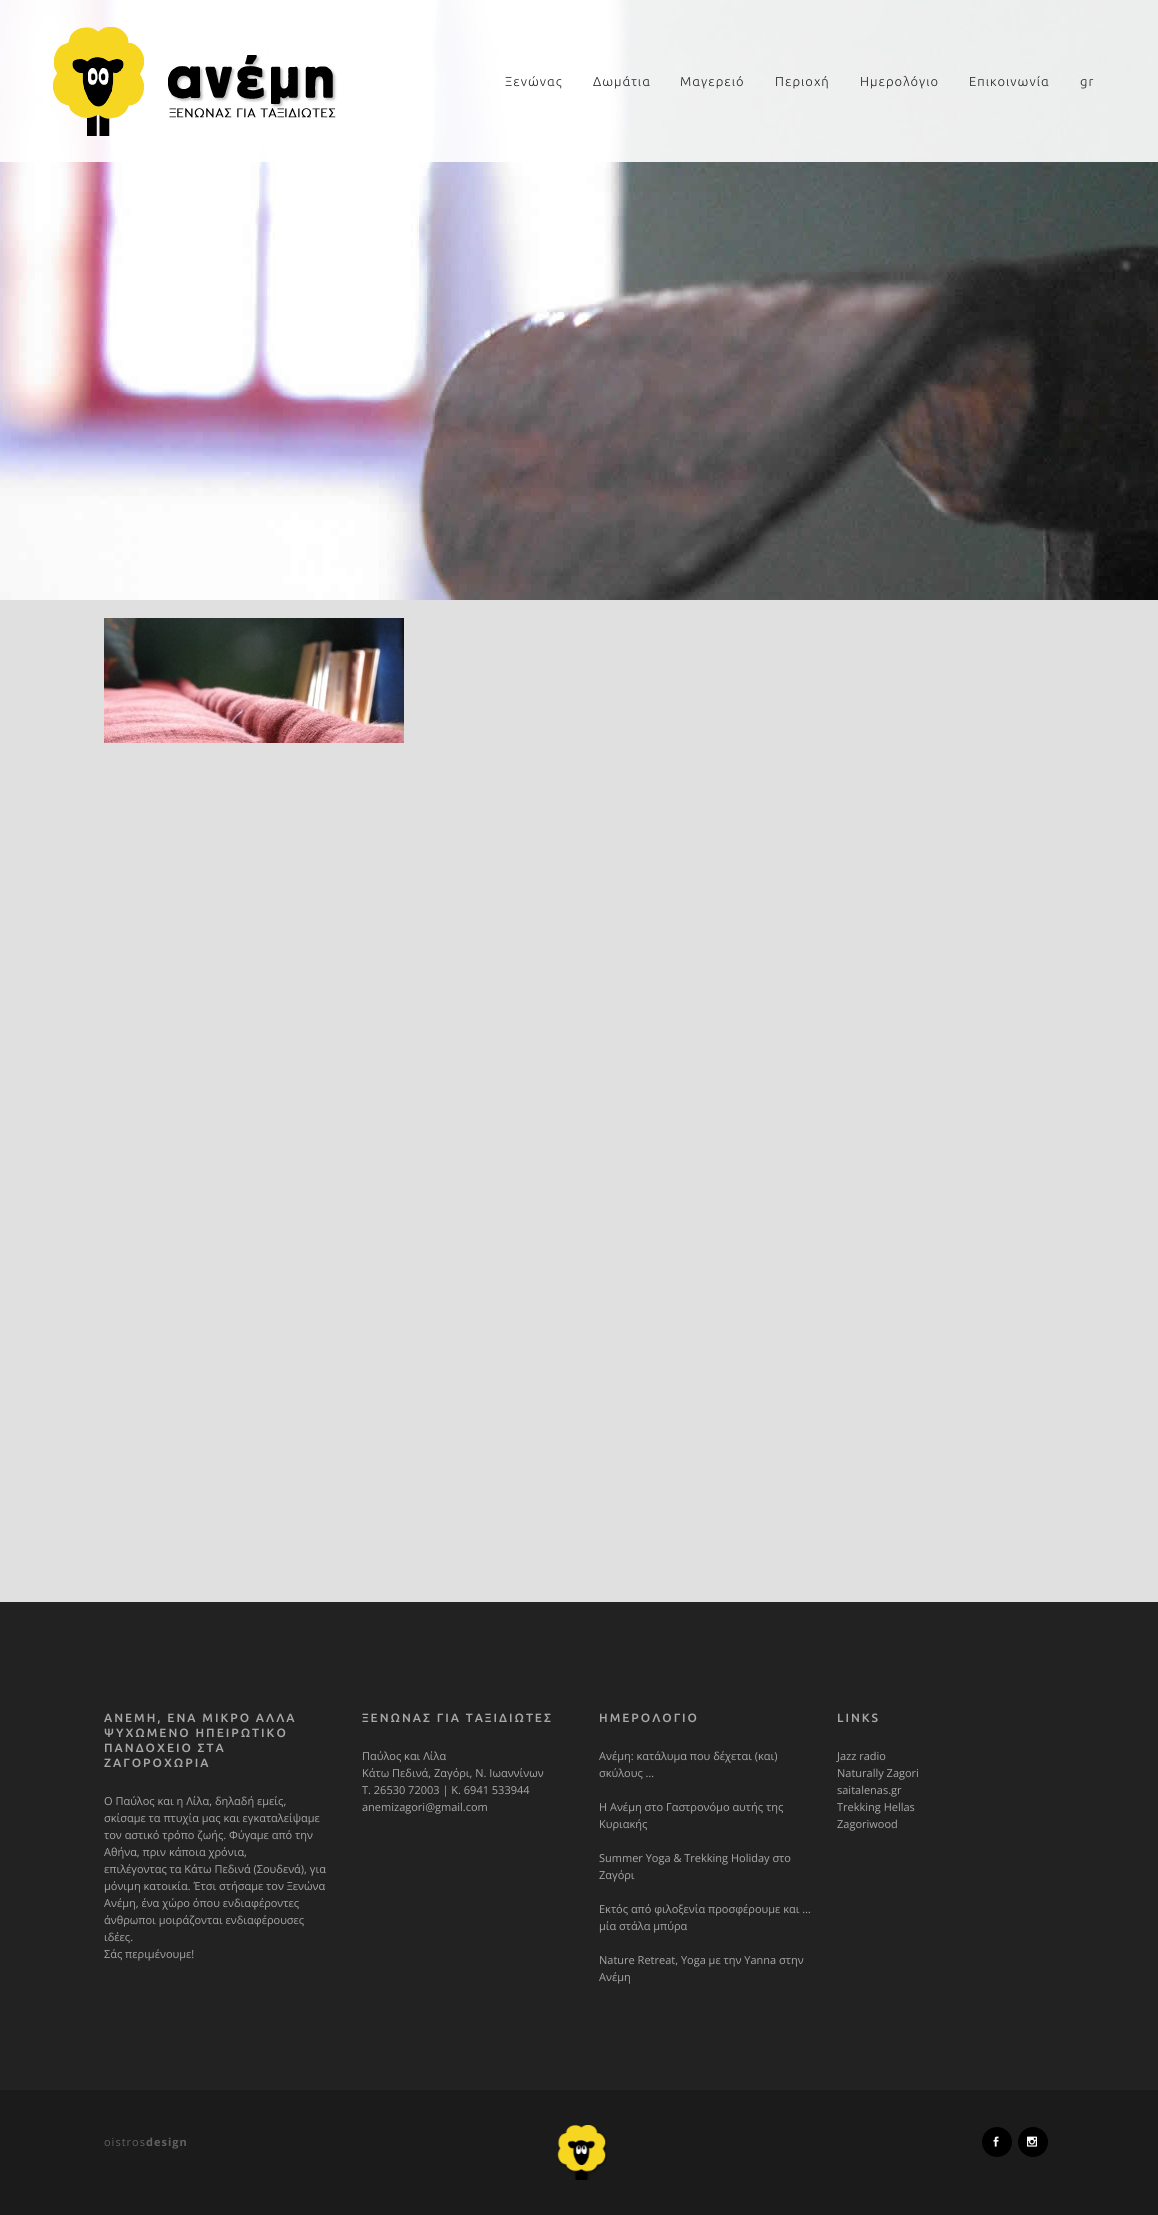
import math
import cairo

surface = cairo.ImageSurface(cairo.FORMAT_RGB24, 1158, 2215)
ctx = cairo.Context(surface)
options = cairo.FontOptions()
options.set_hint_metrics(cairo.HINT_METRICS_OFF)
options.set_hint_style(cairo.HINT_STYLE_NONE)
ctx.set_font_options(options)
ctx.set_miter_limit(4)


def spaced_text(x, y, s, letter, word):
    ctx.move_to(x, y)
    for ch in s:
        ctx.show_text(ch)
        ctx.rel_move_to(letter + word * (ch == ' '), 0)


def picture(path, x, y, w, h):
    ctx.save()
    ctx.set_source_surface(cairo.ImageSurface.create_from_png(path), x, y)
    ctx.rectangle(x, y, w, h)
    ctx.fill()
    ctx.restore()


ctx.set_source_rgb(0.878, 0.878, 0.878)
ctx.paint()
picture("img1.png", 0, 0, 1158, 600)
picture("img2.png", 104, 618, 300, 125)
ctx.set_source_rgba(1, 1, 1, 0.9)
ctx.rectangle(0, 0, 1158, 162)
ctx.fill()
picture("img3.png", 53, 27, 284, 109)
ctx.select_font_face("Ubuntu Light")
ctx.set_font_size(13)
ctx.set_source_rgb(0.133, 0.133, 0.133)
spaced_text(505, 86, "Ξενώνας", 1, 0)
spaced_text(593, 86, "Δωμάτια", 1, 0)
spaced_text(680, 86, "Μαγερειό", 1, 0)
spaced_text(775, 86, "Περιοχή", 1, 0)
spaced_text(860, 86, "Ημερολόγιο", 1, 0)
spaced_text(969, 86, "Επικοινωνία", 1, 0)
spaced_text(1080, 86, "gr", 1, 0)
ctx.rectangle(0, 1602, 1158, 488)
ctx.fill()
ctx.select_font_face("Ubuntu Medium")
ctx.set_font_size(12)
ctx.set_source_rgb(0.659, 0.659, 0.659)
spaced_text(104, 1722, "ΑΝΕΜΗ, ΕΝΑ ΜΙΚΡΟ ΑΛΛΑ", 2, 0)
spaced_text(104, 1737, "ΨΥΧΩΜΕΝΟ ΗΠΕΙΡΩΤΙΚΟ", 2, 0)
spaced_text(104, 1752, "ΠΑΝΔΟΧΕΙΟ ΣΤΑ", 2, 0)
spaced_text(104, 1767, "ΖΑΓΟΡΟΧΩΡΙΑ", 2, 0)
ctx.select_font_face("Open Sans")
ctx.set_font_size(11)
ctx.move_to(104, 1805)
ctx.show_text("Ο Παύλος και η Λίλα, δηλαδή εμείς,")
ctx.move_to(104, 1822)
ctx.show_text("σκίσαμε τα πτυχία μας και εγκαταλείψαμε")
ctx.move_to(104, 1839)
ctx.show_text("τον αστικό τρόπο ζωής. Φύγαμε από την")
ctx.move_to(104, 1856)
ctx.show_text("Αθήνα, πριν κάποια χρόνια,")
ctx.move_to(104, 1873)
ctx.show_text("επιλέγοντας τα Κάτω Πεδινά (Σουδενά), για")
ctx.move_to(104, 1890)
ctx.show_text("μόνιμη κατοικία. Έτσι στήσαμε τον Ξενώνα")
ctx.move_to(104, 1907)
ctx.show_text("Ανέμη, ένα χώρο όπου ενδιαφέροντες")
ctx.move_to(104, 1924)
ctx.show_text("άνθρωποι μοιράζονται ενδιαφέρουσες")
ctx.move_to(104, 1941)
ctx.show_text("ιδέες.")
ctx.move_to(104, 1958)
ctx.show_text("Σάς περιμένουμε!")
ctx.select_font_face("Ubuntu Medium")
ctx.set_font_size(12)
spaced_text(362, 1722, "ΞΕΝΩΝΑΣ ΓΙΑ ΤΑΞΙΔΙΩΤΕΣ", 2, 0)
ctx.select_font_face("Open Sans")
ctx.set_font_size(11)
ctx.move_to(362, 1760)
ctx.show_text("Παύλος και Λίλα")
ctx.move_to(362, 1777)
ctx.show_text("Κάτω Πεδινά, Ζαγόρι, Ν. Ιωαννίνων")
ctx.move_to(362, 1794)
ctx.show_text("Τ. 26530 72003 | Κ. 6941 533944")
ctx.move_to(362, 1811)
ctx.show_text("anemizagori@gmail.com")
ctx.select_font_face("Ubuntu Medium")
ctx.set_font_size(12)
spaced_text(599, 1722, "ΗΜΕΡΟΛΟΓΙΟ", 2, 0)
ctx.select_font_face("Open Sans")
ctx.set_font_size(11)
ctx.move_to(599, 1760)
ctx.show_text("Ανέμη: κατάλυμα που δέχεται (και)")
ctx.move_to(599, 1777)
ctx.show_text("σκύλους …")
ctx.move_to(599, 1811)
ctx.show_text("Η Ανέμη στο Γαστρονόμο αυτής της")
ctx.move_to(599, 1828)
ctx.show_text("Κυριακής")
ctx.move_to(599, 1862)
ctx.show_text("Summer Yoga & Trekking Holiday στο")
ctx.move_to(599, 1879)
ctx.show_text("Ζαγόρι")
ctx.move_to(599, 1913)
ctx.show_text("Εκτός από φιλοξενία προσφέρουμε και …")
ctx.move_to(599, 1930)
ctx.show_text("μία στάλα μπύρα")
ctx.move_to(599, 1964)
ctx.show_text("Nature Retreat, Yoga με την Yanna στην")
ctx.move_to(599, 1981)
ctx.show_text("Ανέμη")
ctx.select_font_face("Ubuntu Medium")
ctx.set_font_size(12)
spaced_text(837, 1722, "LINKS", 2, 0)
ctx.select_font_face("Open Sans")
ctx.set_font_size(11)
ctx.move_to(837, 1760)
ctx.show_text("Jazz radio")
ctx.move_to(837, 1777)
ctx.show_text("Naturally Zagori")
ctx.move_to(837, 1794)
ctx.show_text("saitalenas.gr")
ctx.move_to(837, 1811)
ctx.show_text("Trekking Hellas")
ctx.move_to(837, 1828)
ctx.show_text("Zagoriwood")
ctx.set_source_rgb(0.106, 0.106, 0.106)
ctx.rectangle(0, 2090, 1158, 125)
ctx.fill()
ctx.set_source_rgb(0.376, 0.376, 0.376)
spaced_text(104, 2146, "oistros", 1, 0)
ctx.select_font_face("Open Sans", cairo.FONT_SLANT_NORMAL, cairo.FONT_WEIGHT_BOLD)
spaced_text(146, 2146, "design", 1, 0)
picture("img4.png", 557, 2125, 50, 55)
ctx.set_source_rgb(0, 0, 0)
ctx.arc(997, 2142, 15, 0, 2 * math.pi)
ctx.fill()
picture("img5.png", 993, 2136, 6, 11)
ctx.arc(1033, 2142, 15, 0, 2 * math.pi)
ctx.fill()
picture("img6.png", 1027, 2136, 10, 11)
surface.write_to_png("page.png")
